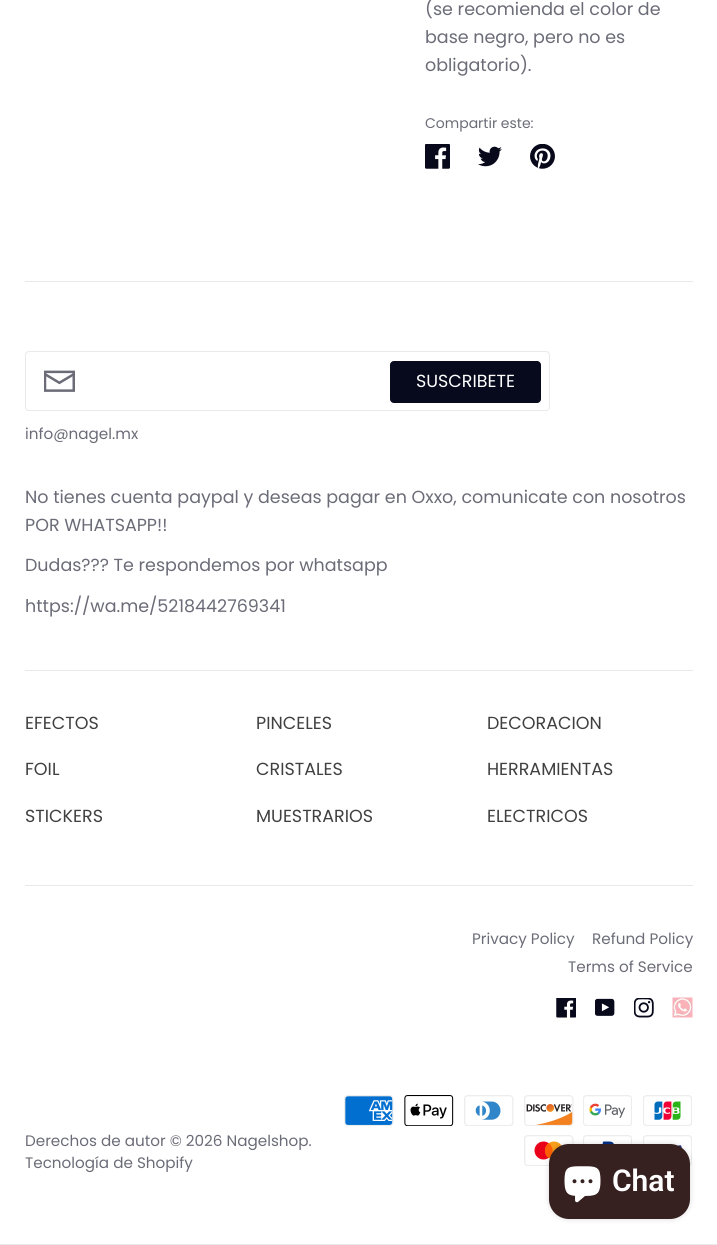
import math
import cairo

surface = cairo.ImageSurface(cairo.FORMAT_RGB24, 717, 1245)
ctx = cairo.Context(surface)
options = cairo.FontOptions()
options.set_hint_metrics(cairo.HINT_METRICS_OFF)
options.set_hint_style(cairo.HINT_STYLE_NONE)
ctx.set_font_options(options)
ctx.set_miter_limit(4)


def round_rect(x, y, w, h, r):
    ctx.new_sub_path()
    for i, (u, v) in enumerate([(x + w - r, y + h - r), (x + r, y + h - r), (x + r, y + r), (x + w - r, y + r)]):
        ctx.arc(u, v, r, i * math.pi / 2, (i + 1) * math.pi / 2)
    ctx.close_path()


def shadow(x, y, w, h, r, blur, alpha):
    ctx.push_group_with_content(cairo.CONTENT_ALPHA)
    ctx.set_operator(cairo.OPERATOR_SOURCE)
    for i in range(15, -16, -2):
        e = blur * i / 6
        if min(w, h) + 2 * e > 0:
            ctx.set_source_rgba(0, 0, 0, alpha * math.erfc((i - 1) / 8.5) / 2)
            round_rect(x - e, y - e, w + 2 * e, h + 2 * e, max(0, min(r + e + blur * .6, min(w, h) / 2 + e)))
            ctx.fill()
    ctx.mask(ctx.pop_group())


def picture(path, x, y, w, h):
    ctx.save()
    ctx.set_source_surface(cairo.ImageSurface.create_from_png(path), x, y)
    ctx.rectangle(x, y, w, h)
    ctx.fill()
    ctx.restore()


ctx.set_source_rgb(1, 1, 1)
ctx.paint()
ctx.select_font_face("Poppins")
ctx.set_font_size(17.5)
ctx.set_source_rgb(0.42, 0.424, 0.467)
ctx.move_to(425, 15)
ctx.show_text("(se recomienda el color de")
ctx.move_to(425, 43)
ctx.show_text("base negro, pero no es")
ctx.move_to(425, 71)
ctx.show_text("obligatorio).")
ctx.set_font_size(14)
ctx.move_to(425, 128)
ctx.show_text("Compartir este:")
picture("img1.png", 425, 144, 25, 25)
picture("img2.png", 478, 146, 24, 21)
picture("img3.png", 530, 144, 25, 25)
ctx.set_source_rgb(0.914, 0.914, 0.922)
ctx.rectangle(25, 281, 668, 1)
ctx.fill()
round_rect(25.5, 351.5, 524, 59, 3.5)
ctx.set_line_width(1)
ctx.stroke()
picture("img4.png", 44, 370, 31, 22)
ctx.set_source_rgb(0.031, 0.039, 0.11)
round_rect(390.5, 361.5, 150, 41, 3.5)
ctx.fill_preserve()
ctx.stroke()
ctx.set_font_size(17.5)
ctx.set_source_rgb(1, 1, 1)
ctx.move_to(416, 387)
ctx.show_text("SUSCRIBETE")
ctx.set_font_size(15.2)
ctx.set_source_rgb(0.42, 0.424, 0.467)
ctx.move_to(25, 439)
ctx.show_text("info@nagel.mx")
ctx.set_source_rgb(0.914, 0.914, 0.922)
ctx.rectangle(25, 670, 668, 1)
ctx.fill()
ctx.set_font_size(17.5)
ctx.set_source_rgb(0.42, 0.424, 0.467)
ctx.move_to(25, 503)
ctx.show_text("No tienes cuenta paypal y deseas pagar en Oxxo, comunicate con nosotros")
ctx.move_to(25, 531)
ctx.show_text("POR WHATSAPP!!")
ctx.move_to(25, 571)
ctx.show_text("Dudas??? Te respondemos por whatsapp")
ctx.move_to(25, 612)
ctx.show_text("https://wa.me/5218442769341")
ctx.set_source_rgb(0.251, 0.251, 0.251)
ctx.move_to(25, 729)
ctx.show_text("EFECTOS")
ctx.move_to(256, 729)
ctx.show_text("PINCELES")
ctx.move_to(487, 729)
ctx.show_text("DECORACION")
ctx.move_to(25, 775)
ctx.show_text("FOIL")
ctx.move_to(256, 775)
ctx.show_text("CRISTALES")
ctx.move_to(487, 775)
ctx.show_text("HERRAMIENTAS")
ctx.move_to(25, 822)
ctx.show_text("STICKERS")
ctx.move_to(256, 822)
ctx.show_text("MUESTRARIOS")
ctx.move_to(487, 822)
ctx.show_text("ELECTRICOS")
ctx.set_source_rgb(0.914, 0.914, 0.922)
ctx.rectangle(25, 885, 668, 1)
ctx.fill()
ctx.set_font_size(15.2)
ctx.set_source_rgb(0.42, 0.424, 0.467)
ctx.move_to(472, 944)
ctx.show_text("Privacy Policy")
ctx.move_to(592, 944)
ctx.show_text("Refund Policy")
ctx.move_to(568, 972)
ctx.show_text("Terms of Service")
picture("img5.png", 556, 998, 20, 20)
picture("img6.png", 595, 998, 20, 18)
picture("img7.png", 634, 998, 20, 20)
picture("img8.png", 672, 997, 21, 21)
ctx.move_to(25, 1146)
ctx.show_text("Derechos de autor © 2026 Nagelshop.")
ctx.move_to(25, 1168)
ctx.show_text("Tecnología de Shopify")
picture("img9.png", 344, 1095, 50, 31)
picture("img10.png", 404, 1095, 50, 31)
picture("img11.png", 464, 1095, 50, 31)
picture("img12.png", 524, 1095, 50, 31)
picture("img13.png", 583, 1095, 49, 31)
picture("img14.png", 643, 1095, 49, 31)
picture("img15.png", 524, 1135, 50, 31)
picture("img16.png", 583, 1135, 49, 9)
picture("img17.png", 643, 1135, 49, 31)
ctx.set_source_rgb(0, 0, 0)
shadow(549, 1144, 141, 75, 20, 3, 0.15)
ctx.set_source_rgb(0.212, 0.125, 0.125)
round_rect(549, 1144, 141, 75, 20)
ctx.fill()
picture("img18.png", 564, 1166, 37, 37)
ctx.select_font_face("Roboto SemiBold")
ctx.set_font_size(30)
ctx.set_source_rgb(1, 1, 1)
ctx.move_to(612, 1191)
ctx.show_text("Chat")
ctx.set_source_rgb(0.914, 0.914, 0.922)
ctx.rectangle(0, 1244, 717, 1)
ctx.fill()
surface.write_to_png("page.png")
